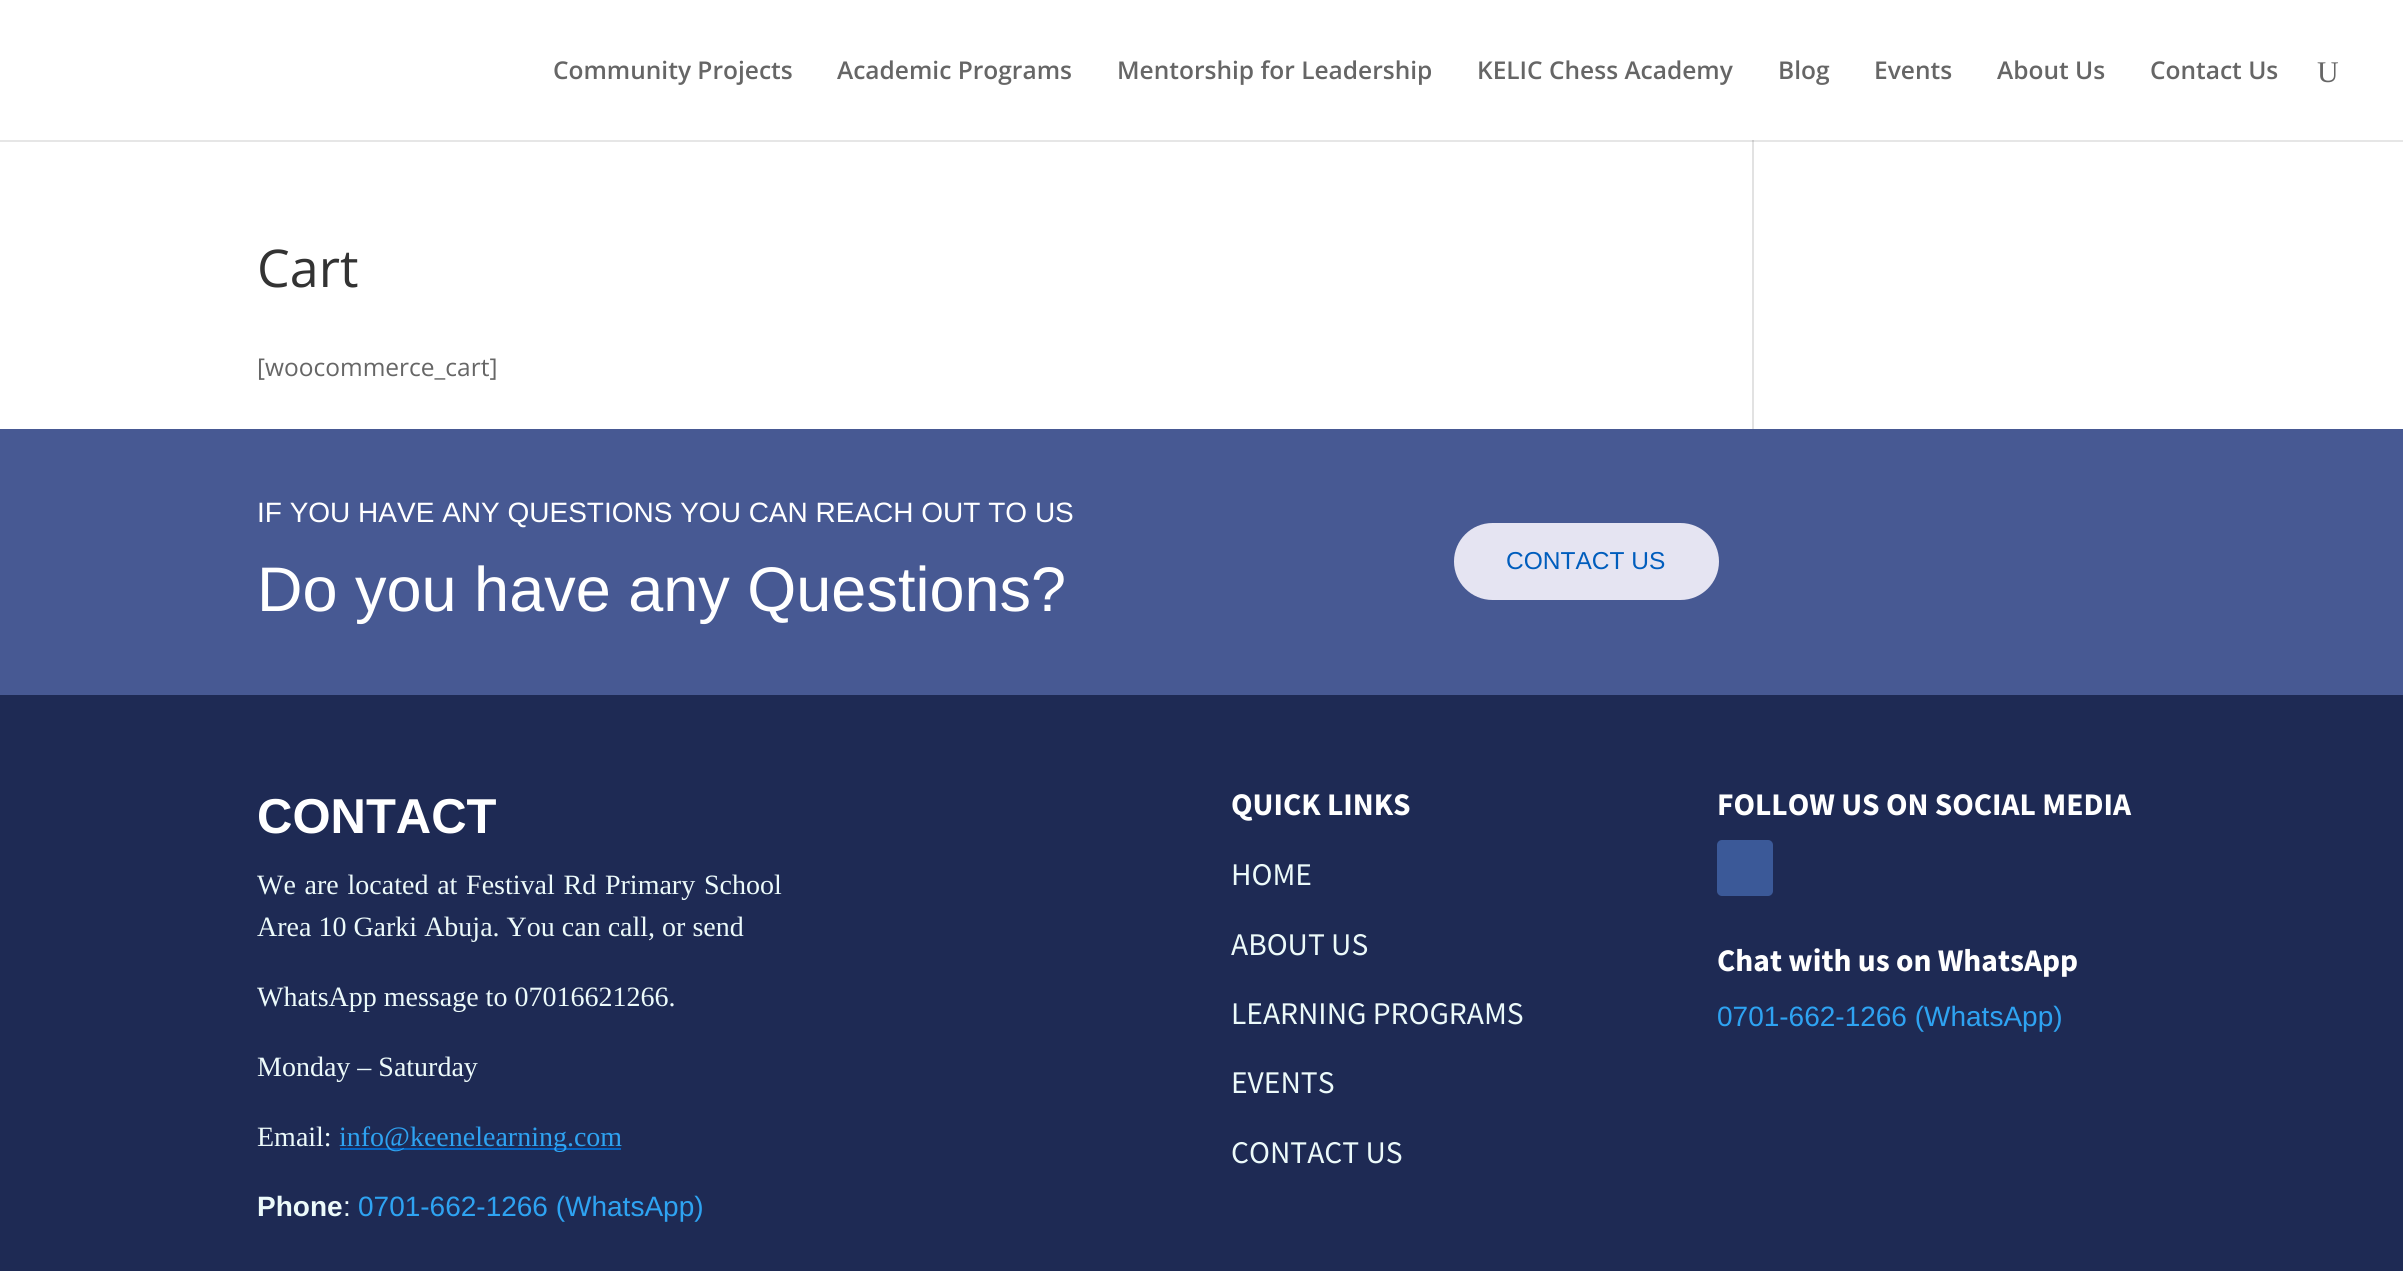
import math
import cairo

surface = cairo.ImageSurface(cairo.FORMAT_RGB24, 2403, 1271)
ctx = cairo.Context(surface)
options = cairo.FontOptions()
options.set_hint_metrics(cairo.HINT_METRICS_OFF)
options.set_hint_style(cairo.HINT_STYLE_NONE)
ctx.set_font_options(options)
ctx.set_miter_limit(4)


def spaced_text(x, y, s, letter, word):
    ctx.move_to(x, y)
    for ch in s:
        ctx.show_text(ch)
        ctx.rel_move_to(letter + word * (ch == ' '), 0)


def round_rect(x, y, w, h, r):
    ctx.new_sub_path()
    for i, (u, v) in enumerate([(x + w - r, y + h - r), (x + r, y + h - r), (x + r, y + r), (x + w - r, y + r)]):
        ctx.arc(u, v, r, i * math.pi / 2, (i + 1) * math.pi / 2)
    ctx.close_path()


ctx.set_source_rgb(1, 1, 1)
ctx.paint()
ctx.set_source_rgb(0.886, 0.886, 0.886)
ctx.rectangle(1752, 140, 2, 289)
ctx.fill()
ctx.set_source_rgba(0, 0, 0, 0.1)
ctx.new_path()
ctx.move_to(0, 140)
ctx.line_to(0, 142)
ctx.line_to(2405, 142)
ctx.line_to(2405, 2)
ctx.line_to(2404, 2)
ctx.line_to(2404, 140)
ctx.close_path()
ctx.fill()
ctx.select_font_face("Open Sans SemiBold")
ctx.set_font_size(24.5)
ctx.set_source_rgb(0.4, 0.4, 0.4)
ctx.move_to(553, 79)
ctx.show_text("Community Projects")
ctx.move_to(837, 79)
ctx.show_text("Academic Programs")
ctx.move_to(1117, 79)
ctx.show_text("Mentorship for Leadership")
ctx.move_to(1477, 79)
ctx.show_text("KELIC Chess Academy")
ctx.move_to(1778, 79)
ctx.show_text("Blog")
ctx.move_to(1874, 79)
ctx.show_text("Events")
ctx.move_to(1997, 79)
ctx.show_text("About Us")
ctx.move_to(2150, 79)
ctx.show_text("Contact Us")
ctx.select_font_face("Liberation Serif")
ctx.set_font_size(30)
ctx.move_to(2317, 82)
ctx.show_text("U")
ctx.select_font_face("Open Sans")
ctx.set_font_size(52)
ctx.set_source_rgb(0.2, 0.2, 0.2)
ctx.move_to(257, 287)
ctx.show_text("Cart")
ctx.set_font_size(24.5)
ctx.set_source_rgb(0.4, 0.4, 0.4)
ctx.move_to(257, 376)
ctx.show_text("[woocommerce_cart]")
ctx.set_source_rgb(0.278, 0.349, 0.576)
ctx.rectangle(0, 429, 2403, 266)
ctx.fill()
ctx.select_font_face("Liberation Sans")
ctx.set_font_size(28)
ctx.set_source_rgb(1, 1, 1)
ctx.move_to(257, 522)
ctx.show_text("IF YOU HAVE ANY QUESTIONS YOU CAN REACH OUT TO US")
ctx.set_font_size(63)
ctx.move_to(257, 611)
ctx.show_text("Do you have any Questions?")
ctx.set_source_rgb(0.898, 0.894, 0.949)
round_rect(1454, 523, 265, 77, 38.5)
ctx.fill()
ctx.set_font_size(24.5)
ctx.set_source_rgb(0, 0.365, 0.741)
ctx.move_to(1506, 569)
ctx.show_text("CONTACT US")
ctx.set_source_rgb(0.118, 0.165, 0.329)
ctx.rectangle(0, 695, 2403, 576)
ctx.fill()
ctx.select_font_face("Liberation Sans", cairo.FONT_SLANT_NORMAL, cairo.FONT_WEIGHT_BOLD)
ctx.set_font_size(49)
ctx.set_source_rgb(1, 1, 1)
ctx.move_to(257, 833)
ctx.show_text("CONTACT")
ctx.select_font_face("Liberation Serif")
ctx.set_font_size(28)
ctx.set_source_rgb(0.922, 0.98, 0.98)
spaced_text(257, 894, "We are located at Festival Rd Primary School", 0, 1.75)
ctx.move_to(257, 936)
ctx.show_text("Area 10 Garki Abuja. You can call, or send")
ctx.move_to(257, 1006)
ctx.show_text("WhatsApp message to 07016621266.")
ctx.move_to(257, 1076)
ctx.show_text("Monday – Saturday")
ctx.move_to(257, 1146)
ctx.show_text("Email:")
ctx.set_source_rgb(0.02, 0.388, 0.757)
ctx.rectangle(340, 1148, 281, 2)
ctx.fill()
ctx.set_source_rgb(0.18, 0.639, 0.949)
ctx.move_to(339, 1146)
ctx.show_text("info@keenelearning.com")
ctx.select_font_face("Liberation Sans", cairo.FONT_SLANT_NORMAL, cairo.FONT_WEIGHT_BOLD)
ctx.set_source_rgb(0.922, 0.98, 0.98)
ctx.move_to(257, 1216)
ctx.show_text("Phone")
ctx.select_font_face("Liberation Sans")
ctx.move_to(343, 1216)
ctx.show_text(":")
ctx.set_source_rgb(0.18, 0.639, 0.949)
ctx.move_to(358, 1216)
ctx.show_text("0701-662-1266 (WhatsApp)")
ctx.select_font_face("Source Sans Pro", cairo.FONT_SLANT_NORMAL, cairo.FONT_WEIGHT_BOLD)
ctx.set_font_size(31.5)
ctx.set_source_rgb(1, 1, 1)
ctx.move_to(1231, 815)
ctx.show_text("QUICK LINKS")
ctx.select_font_face("Source Sans Pro")
ctx.set_source_rgb(0.922, 0.98, 0.98)
ctx.move_to(1231, 885)
ctx.show_text("HOME")
ctx.move_to(1231, 955)
ctx.show_text("ABOUT US")
ctx.move_to(1231, 1024)
ctx.show_text("LEARNING PROGRAMS")
ctx.move_to(1231, 1093)
ctx.show_text("EVENTS")
ctx.move_to(1231, 1163)
ctx.show_text("CONTACT US")
ctx.select_font_face("Source Sans Pro", cairo.FONT_SLANT_NORMAL, cairo.FONT_WEIGHT_BOLD)
ctx.set_source_rgb(1, 1, 1)
ctx.move_to(1717, 815)
ctx.show_text("FOLLOW US ON SOCIAL MEDIA")
ctx.set_source_rgb(0.231, 0.349, 0.596)
round_rect(1717, 840, 56, 56, 5)
ctx.fill()
ctx.set_source_rgb(1, 1, 1)
ctx.move_to(1717, 971)
ctx.show_text("Chat with us on WhatsApp")
ctx.select_font_face("Liberation Sans")
ctx.set_font_size(28)
ctx.set_source_rgb(0.18, 0.639, 0.949)
ctx.move_to(1717, 1026)
ctx.show_text("0701-662-1266 (WhatsApp)")
surface.write_to_png("page.png")
